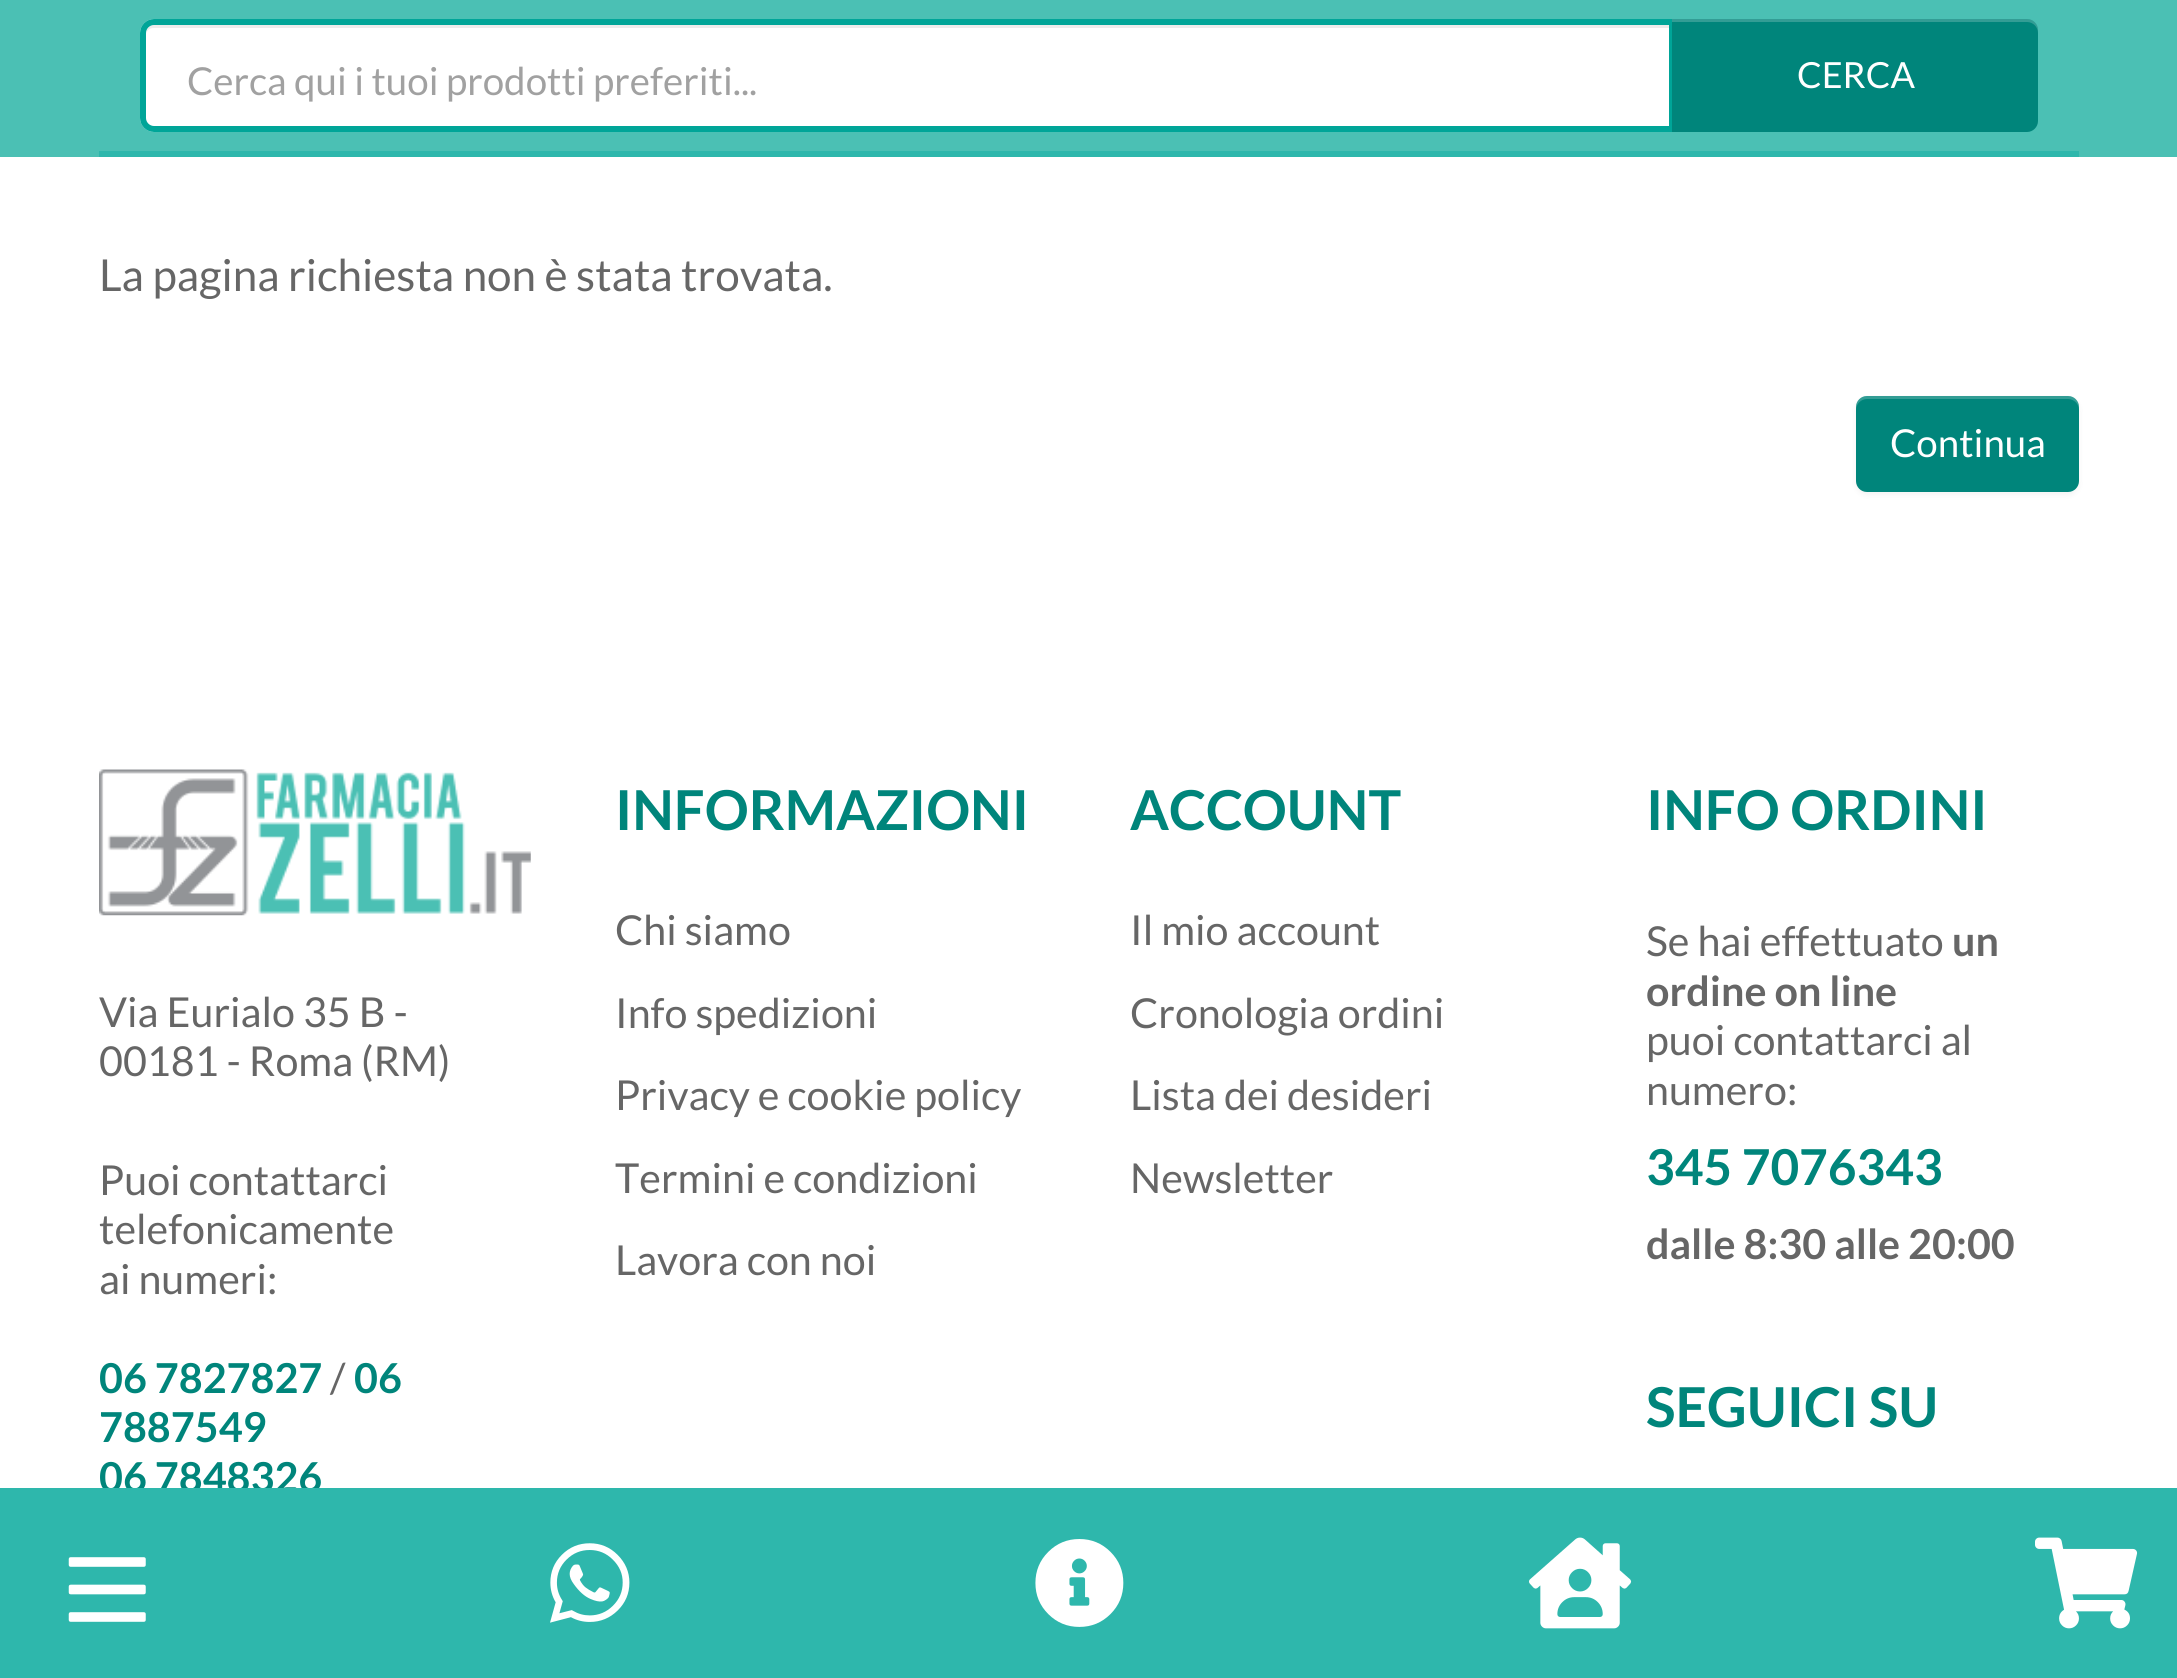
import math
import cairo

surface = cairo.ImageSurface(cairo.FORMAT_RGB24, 2177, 1678)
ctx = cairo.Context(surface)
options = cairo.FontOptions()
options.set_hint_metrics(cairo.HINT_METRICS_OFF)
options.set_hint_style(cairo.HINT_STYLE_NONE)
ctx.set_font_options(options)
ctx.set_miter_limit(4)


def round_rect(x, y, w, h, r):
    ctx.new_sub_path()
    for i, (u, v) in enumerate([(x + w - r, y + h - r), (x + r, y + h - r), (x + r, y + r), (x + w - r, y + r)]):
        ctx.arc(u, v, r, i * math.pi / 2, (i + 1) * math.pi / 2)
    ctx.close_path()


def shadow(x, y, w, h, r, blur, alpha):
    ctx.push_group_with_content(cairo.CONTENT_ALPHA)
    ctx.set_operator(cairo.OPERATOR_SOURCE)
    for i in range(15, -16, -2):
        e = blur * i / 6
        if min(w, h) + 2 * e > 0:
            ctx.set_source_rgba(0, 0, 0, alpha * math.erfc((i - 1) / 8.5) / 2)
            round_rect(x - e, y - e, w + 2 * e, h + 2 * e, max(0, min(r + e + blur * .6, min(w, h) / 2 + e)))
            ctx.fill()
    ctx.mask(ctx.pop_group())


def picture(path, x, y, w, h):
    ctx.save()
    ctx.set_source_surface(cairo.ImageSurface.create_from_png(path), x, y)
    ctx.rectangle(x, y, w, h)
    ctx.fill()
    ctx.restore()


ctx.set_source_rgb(1, 1, 1)
ctx.paint()
ctx.set_source_rgb(0.294, 0.753, 0.706)
ctx.rectangle(0, 0, 2177, 157)
ctx.fill()
ctx.set_source_rgb(0.18, 0.718, 0.675)
ctx.rectangle(99, 151, 1980, 6)
ctx.fill()
ctx.set_source_rgb(1, 1, 1)
ctx.new_path()
ctx.move_to(154, 19)
ctx.line_to(1675, 19)
ctx.line_to(1675, 132)
ctx.line_to(154, 132)
ctx.curve_to(146.5, 132, 140, 125.5, 140, 118)
ctx.line_to(140, 33)
ctx.curve_to(140, 25.5, 146.5, 19, 154, 19)
ctx.close_path()
ctx.fill()
ctx.set_source_rgb(0.925, 0.925, 0.925)
ctx.new_path()
ctx.move_to(154, 28)
ctx.line_to(1669, 28)
ctx.line_to(1669, 25)
ctx.line_to(154, 25)
ctx.curve_to(148, 25, 146, 31, 146, 36)
ctx.curve_to(146, 31, 149, 28, 154, 28)
ctx.close_path()
ctx.fill()
ctx.new_path()
ctx.move_to(154, 22)
ctx.line_to(1672, 22)
ctx.line_to(1672, 129)
ctx.line_to(154, 129)
ctx.curve_to(148, 129, 143, 124, 143, 118)
ctx.line_to(143, 33)
ctx.curve_to(143, 27, 148, 22, 154, 22)
ctx.close_path()
ctx.set_source_rgb(0, 0.647, 0.596)
ctx.set_line_width(6)
ctx.stroke()
ctx.select_font_face("Lato")
ctx.set_font_size(38.5)
ctx.set_source_rgb(0.631, 0.631, 0.631)
ctx.move_to(187, 95)
ctx.show_text("Cerca qui i tuoi prodotti preferiti...")
ctx.set_source_rgb(0, 0.522, 0.482)
ctx.new_path()
ctx.move_to(1672, 19)
ctx.line_to(2027, 19)
ctx.curve_to(2033, 19, 2038, 24, 2038, 30)
ctx.line_to(2038, 121)
ctx.curve_to(2038, 127, 2033, 132, 2027, 132)
ctx.line_to(1672, 132)
ctx.close_path()
ctx.fill()
ctx.set_source_rgba(1, 1, 1, 0.2)
ctx.new_path()
ctx.move_to(1672, 22)
ctx.line_to(2027, 22)
ctx.curve_to(2033, 22, 2038, 27, 2038, 33)
ctx.line_to(2038, 30)
ctx.curve_to(2038, 24, 2033, 19, 2027, 19)
ctx.line_to(1672, 19)
ctx.close_path()
ctx.fill()
ctx.set_font_size(36)
ctx.set_source_rgb(1, 1, 1)
ctx.move_to(1797, 88)
ctx.show_text("CERCA")
ctx.set_font_size(44)
ctx.set_source_rgb(0.4, 0.4, 0.4)
ctx.move_to(99, 291)
ctx.show_text("La pagina richiesta non è stata trovata.")
ctx.set_source_rgb(0, 0, 0)
shadow(1856, 399, 223, 96, 11, 3, 0.05)
ctx.set_source_rgb(0, 0.522, 0.482)
round_rect(1856, 396, 223, 96, 11)
ctx.fill()
ctx.set_source_rgba(1, 1, 1, 0.2)
ctx.new_path()
ctx.move_to(1867, 399)
ctx.line_to(2068, 399)
ctx.curve_to(2074, 399, 2079, 404, 2079, 410)
ctx.line_to(2079, 407)
ctx.curve_to(2079, 401, 2074, 396, 2068, 396)
ctx.line_to(1867, 396)
ctx.curve_to(1861, 396, 1856, 401, 1856, 407)
ctx.line_to(1856, 410)
ctx.curve_to(1856, 404, 1861, 399, 1867, 399)
ctx.close_path()
ctx.fill()
ctx.set_font_size(38.5)
ctx.set_source_rgb(1, 1, 1)
ctx.move_to(1890, 457)
ctx.show_text("Continua")
picture("img1.png", 99, 769, 432, 147)
ctx.set_font_size(41.25)
ctx.set_source_rgb(0.4, 0.4, 0.4)
ctx.move_to(99, 1027)
ctx.show_text("Via Eurialo 35 B -")
ctx.move_to(99, 1076)
ctx.show_text("00181 - Roma (RM)")
ctx.move_to(99, 1195)
ctx.show_text("Puoi contattarci")
ctx.move_to(99, 1244)
ctx.show_text("telefonicamente")
ctx.move_to(99, 1294)
ctx.show_text("ai numeri:")
ctx.select_font_face("Lato", cairo.FONT_SLANT_NORMAL, cairo.FONT_WEIGHT_BOLD)
ctx.set_source_rgb(0, 0.522, 0.482)
ctx.move_to(99, 1393)
ctx.show_text("06 7827827")
ctx.select_font_face("Lato")
ctx.set_source_rgb(0.4, 0.4, 0.4)
ctx.move_to(330, 1393)
ctx.show_text("/")
ctx.select_font_face("Lato", cairo.FONT_SLANT_NORMAL, cairo.FONT_WEIGHT_BOLD)
ctx.set_source_rgb(0, 0.522, 0.482)
ctx.move_to(354, 1393)
ctx.show_text("06")
ctx.move_to(99, 1442)
ctx.show_text("7887549")
ctx.move_to(99, 1492)
ctx.show_text("06 7848326")
ctx.set_font_size(55)
ctx.move_to(615, 830)
ctx.show_text("INFORMAZIONI")
ctx.select_font_face("Lato")
ctx.set_font_size(41.25)
ctx.set_source_rgb(0.4, 0.4, 0.4)
ctx.move_to(615, 945)
ctx.show_text("Chi siamo")
ctx.move_to(615, 1028)
ctx.show_text("Info spedizioni")
ctx.move_to(615, 1110)
ctx.show_text("Privacy e cookie policy")
ctx.move_to(615, 1193)
ctx.show_text("Termini e condizioni")
ctx.move_to(615, 1275)
ctx.show_text("Lavora con noi")
ctx.select_font_face("Lato", cairo.FONT_SLANT_NORMAL, cairo.FONT_WEIGHT_BOLD)
ctx.set_font_size(55)
ctx.set_source_rgb(0, 0.522, 0.482)
ctx.move_to(1130, 830)
ctx.show_text("ACCOUNT")
ctx.select_font_face("Lato")
ctx.set_font_size(41.25)
ctx.set_source_rgb(0.4, 0.4, 0.4)
ctx.move_to(1130, 945)
ctx.show_text("Il mio account")
ctx.move_to(1130, 1028)
ctx.show_text("Cronologia ordini")
ctx.move_to(1130, 1110)
ctx.show_text("Lista dei desideri")
ctx.move_to(1130, 1193)
ctx.show_text("Newsletter")
ctx.select_font_face("Lato", cairo.FONT_SLANT_NORMAL, cairo.FONT_WEIGHT_BOLD)
ctx.set_font_size(55)
ctx.set_source_rgb(0, 0.522, 0.482)
ctx.move_to(1646, 830)
ctx.show_text("INFO ORDINI")
ctx.select_font_face("Lato")
ctx.set_font_size(41.25)
ctx.set_source_rgb(0.4, 0.4, 0.4)
ctx.move_to(1646, 956)
ctx.show_text("Se hai effettuato")
ctx.select_font_face("Lato", cairo.FONT_SLANT_NORMAL, cairo.FONT_WEIGHT_BOLD)
ctx.move_to(1952, 956)
ctx.show_text("un")
ctx.move_to(1646, 1006)
ctx.show_text("ordine on line")
ctx.select_font_face("Lato")
ctx.move_to(1646, 1055)
ctx.show_text("puoi contattarci al")
ctx.move_to(1646, 1105)
ctx.show_text("numero:")
ctx.select_font_face("Lato", cairo.FONT_SLANT_NORMAL, cairo.FONT_WEIGHT_BOLD)
ctx.set_font_size(49.5)
ctx.set_source_rgb(0, 0.522, 0.482)
ctx.move_to(1646, 1185)
ctx.show_text("345 7076343")
ctx.set_font_size(41.25)
ctx.set_source_rgb(0.4, 0.4, 0.4)
ctx.move_to(1646, 1259)
ctx.show_text("dalle 8:30 alle 20:00")
ctx.set_font_size(55)
ctx.set_source_rgb(0, 0.522, 0.482)
ctx.move_to(1646, 1427)
ctx.show_text("SEGUICI SU")
ctx.set_source_rgb(0.18, 0.718, 0.675)
ctx.rectangle(0, 1488, 2177, 190)
ctx.fill()
picture("img2.png", 68, 1557, 78, 65)
picture("img3.png", 550, 1543, 80, 80)
picture("img4.png", 1035, 1539, 89, 88)
picture("img5.png", 1529, 1537, 103, 92)
picture("img6.png", 2035, 1537, 103, 92)
surface.write_to_png("page.png")
